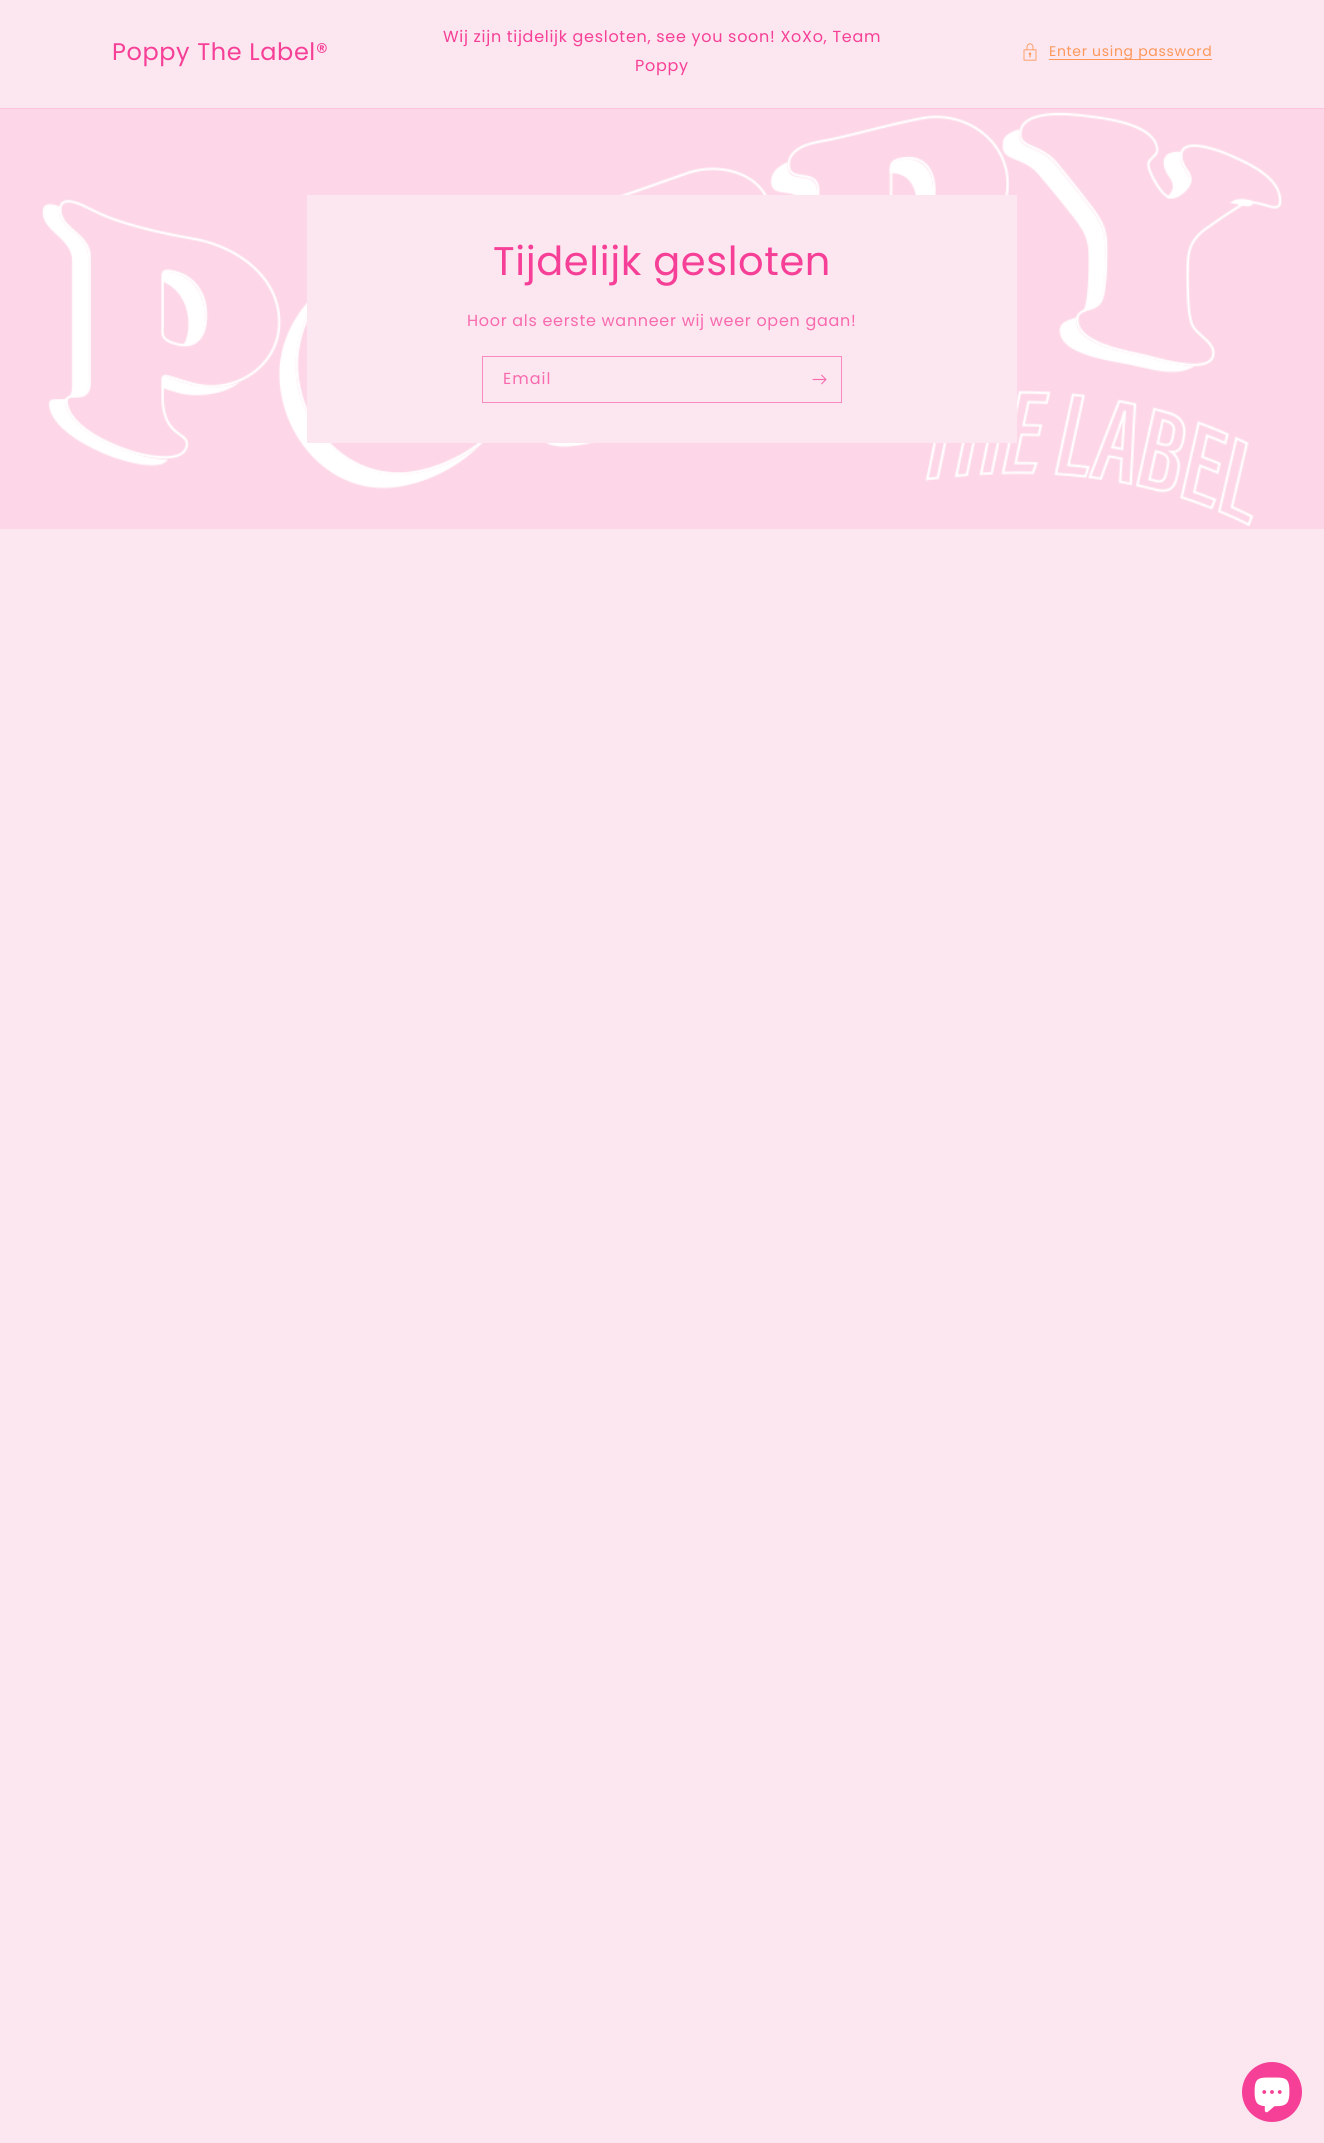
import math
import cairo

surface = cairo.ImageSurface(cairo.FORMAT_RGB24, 1324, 2143)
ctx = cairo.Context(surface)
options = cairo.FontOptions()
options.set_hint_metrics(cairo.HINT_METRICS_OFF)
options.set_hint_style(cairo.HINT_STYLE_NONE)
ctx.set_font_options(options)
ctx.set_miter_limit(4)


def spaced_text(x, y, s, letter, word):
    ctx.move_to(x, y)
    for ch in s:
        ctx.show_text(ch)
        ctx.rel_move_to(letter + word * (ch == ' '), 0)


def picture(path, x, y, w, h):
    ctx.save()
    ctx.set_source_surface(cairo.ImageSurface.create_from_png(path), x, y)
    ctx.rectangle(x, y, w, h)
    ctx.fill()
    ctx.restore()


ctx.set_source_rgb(0.988, 0.902, 0.941)
ctx.paint()
ctx.select_font_face("Poppins")
ctx.set_font_size(24)
ctx.set_source_rgb(0.961, 0.247, 0.588)
spaced_text(112, 60, "Poppy The Label®", 0.6, 0)
ctx.set_font_size(16)
spaced_text(443, 42, "Wij zijn tijdelijk gesloten, see you soon! XoXo, Team", 0.7, 0)
spaced_text(635, 71, "Poppy", 0.7, 0)
picture("img1.png", 1023, 43, 14, 18)
ctx.set_source_rgb(1, 0.592, 0.345)
ctx.rectangle(1049, 59, 163, 1)
ctx.fill()
ctx.set_font_size(14)
spaced_text(1049, 56, "Enter using password", 0.7, 0)
ctx.set_source_rgb(0.984, 0.773, 0.871)
ctx.rectangle(0, 108, 1324, 1)
ctx.fill()
ctx.set_source_rgb(0.992, 0.843, 0.906)
ctx.rectangle(0, 109, 1324, 420)
ctx.fill()
picture("img2.png", 42, 112, 1240, 415)
ctx.set_source_rgb(0.988, 0.902, 0.941)
ctx.rectangle(307, 195, 710, 248)
ctx.fill()
ctx.set_font_size(40)
ctx.set_source_rgb(0.961, 0.247, 0.588)
spaced_text(493, 275, "Tijdelijk gesloten", 0.6, 0)
ctx.set_font_size(16)
ctx.set_source_rgb(0.969, 0.412, 0.678)
spaced_text(467, 326, "Hoor als eerste wanneer wij weer open gaan!", 0.7, 0)
ctx.rectangle(482.5, 356.5, 359, 46)
ctx.set_source_rgb(0.973, 0.541, 0.749)
ctx.set_line_width(1)
ctx.stroke()
ctx.set_source_rgb(0.969, 0.412, 0.678)
spaced_text(503, 384, "Email", 1, 0)
picture("img3.png", 812, 374, 15, 11)
ctx.set_source_rgb(0.961, 0.247, 0.588)
ctx.arc(1272, 2092, 30, 0, 2 * math.pi)
ctx.fill()
picture("img4.png", 1254, 2077, 36, 36)
surface.write_to_png("page.png")
